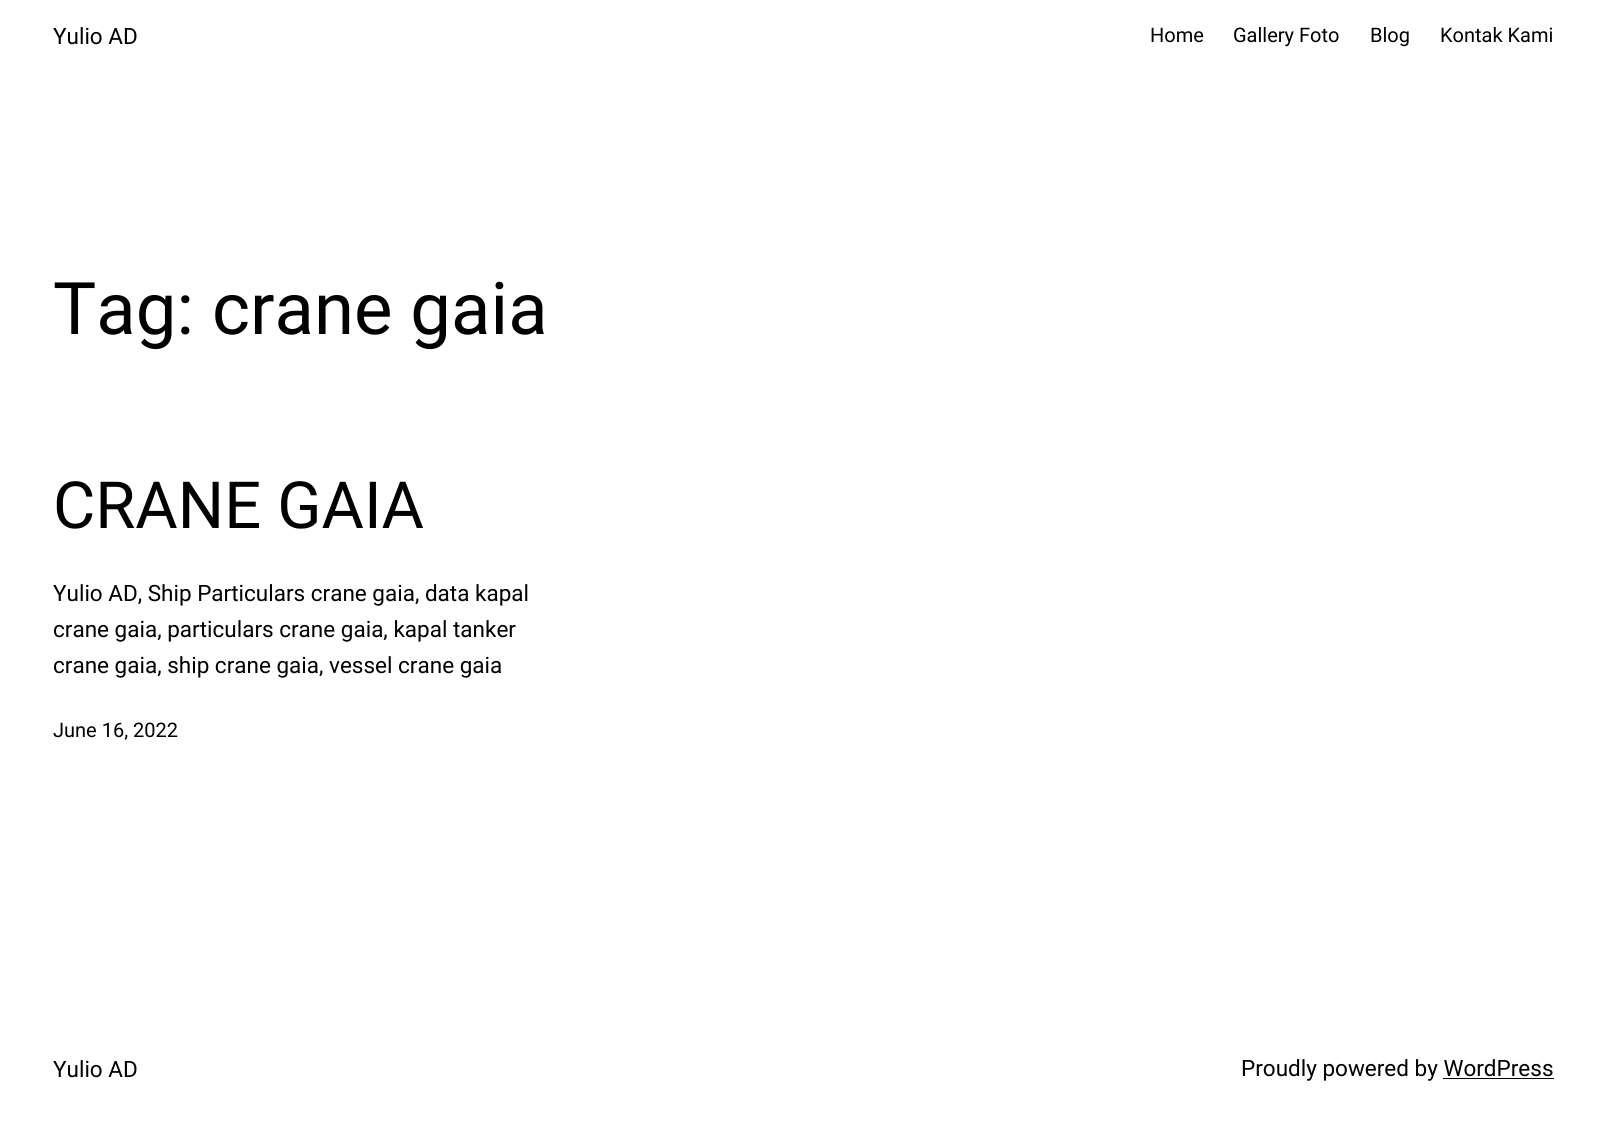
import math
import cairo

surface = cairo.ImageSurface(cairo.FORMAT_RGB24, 1606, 1127)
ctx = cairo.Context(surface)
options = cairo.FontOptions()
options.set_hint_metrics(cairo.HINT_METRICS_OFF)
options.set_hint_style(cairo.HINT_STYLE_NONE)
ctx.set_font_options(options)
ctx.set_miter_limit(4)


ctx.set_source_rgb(1, 1, 1)
ctx.paint()
ctx.select_font_face("Roboto")
ctx.set_font_size(22.5)
ctx.set_source_rgb(0, 0, 0)
ctx.move_to(53, 44)
ctx.show_text("Yulio AD")
ctx.set_font_size(20)
ctx.move_to(1150, 42)
ctx.show_text("Home")
ctx.move_to(1233, 42)
ctx.show_text("Gallery Foto")
ctx.move_to(1370, 42)
ctx.show_text("Blog")
ctx.move_to(1440, 42)
ctx.show_text("Kontak Kami")
ctx.set_font_size(72.5)
ctx.move_to(53, 334)
ctx.show_text("Tag: crane gaia")
ctx.set_font_size(65)
ctx.move_to(53, 528)
ctx.show_text("CRANE GAIA")
ctx.set_font_size(22.5)
ctx.move_to(53, 601)
ctx.show_text("Yulio AD, Ship Particulars crane gaia, data kapal")
ctx.move_to(53, 637)
ctx.show_text("crane gaia, particulars crane gaia, kapal tanker")
ctx.move_to(53, 673)
ctx.show_text("crane gaia, ship crane gaia, vessel crane gaia")
ctx.set_font_size(20)
ctx.move_to(53, 737)
ctx.show_text("June 16, 2022")
ctx.set_font_size(22.5)
ctx.move_to(53, 1077)
ctx.show_text("Yulio AD")
ctx.move_to(1241, 1076)
ctx.show_text("Proudly powered by WordPress")
ctx.rectangle(1443, 1078, 111, 1)
ctx.fill()
surface.write_to_png("page.png")
